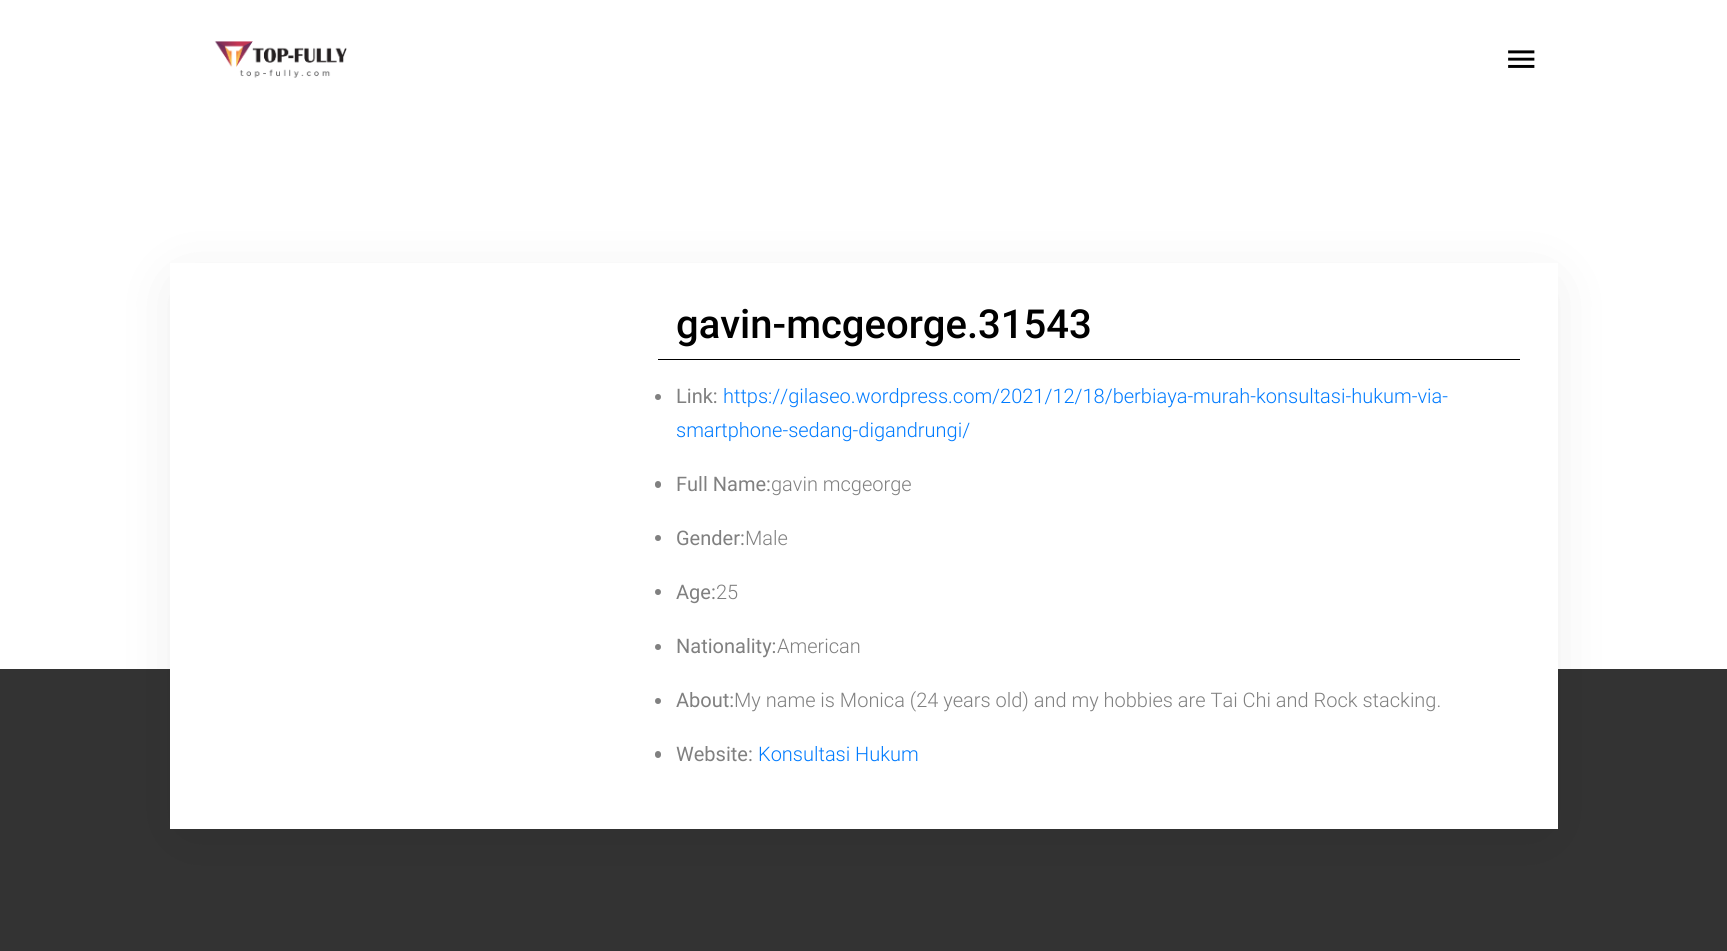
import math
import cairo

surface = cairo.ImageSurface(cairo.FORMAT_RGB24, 1727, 951)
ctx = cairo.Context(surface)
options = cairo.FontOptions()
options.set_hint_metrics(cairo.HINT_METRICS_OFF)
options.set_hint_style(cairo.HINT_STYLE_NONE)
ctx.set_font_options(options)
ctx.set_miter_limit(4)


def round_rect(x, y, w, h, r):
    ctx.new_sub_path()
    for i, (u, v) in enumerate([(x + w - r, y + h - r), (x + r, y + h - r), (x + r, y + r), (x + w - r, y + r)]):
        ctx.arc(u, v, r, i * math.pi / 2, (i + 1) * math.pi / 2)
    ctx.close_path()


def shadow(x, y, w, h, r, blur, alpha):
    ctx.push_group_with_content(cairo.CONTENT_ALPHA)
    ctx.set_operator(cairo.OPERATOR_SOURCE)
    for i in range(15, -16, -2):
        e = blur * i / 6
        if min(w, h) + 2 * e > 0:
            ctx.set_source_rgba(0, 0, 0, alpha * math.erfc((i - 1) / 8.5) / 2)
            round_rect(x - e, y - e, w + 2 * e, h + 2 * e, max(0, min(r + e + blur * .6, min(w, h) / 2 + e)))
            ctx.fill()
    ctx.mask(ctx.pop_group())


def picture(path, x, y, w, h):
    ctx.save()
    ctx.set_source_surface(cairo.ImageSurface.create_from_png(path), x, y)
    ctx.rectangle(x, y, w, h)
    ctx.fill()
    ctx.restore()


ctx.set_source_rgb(1, 1, 1)
ctx.paint()
picture("img1.png", 214, 41, 133, 37)
picture("img2.png", 1508, 50, 27, 18)
ctx.set_source_rgb(0.2, 0.2, 0.2)
ctx.rectangle(0, 669, 1727, 282)
ctx.fill()
ctx.set_source_rgb(0, 0, 0)
shadow(183, 288, 1362, 541, 0, 31, 0.1)
ctx.set_source_rgb(1, 1, 1)
ctx.rectangle(170, 263, 1388, 566)
ctx.fill()
ctx.set_source_rgb(0, 0, 0)
ctx.rectangle(658, 359, 862, 1)
ctx.fill()
ctx.select_font_face("Roboto Medium")
ctx.set_font_size(40)
ctx.move_to(676, 338)
ctx.show_text("gavin-mcgeorge.31543")
ctx.set_source_rgb(0.502, 0.502, 0.502)
ctx.new_path()
ctx.arc(658, 397, 3, 0, 2 * math.pi)
ctx.fill()
ctx.select_font_face("Roboto")
ctx.set_font_size(20)
ctx.move_to(676, 403)
ctx.show_text("Link:")
ctx.select_font_face("Roboto Light")
ctx.set_source_rgb(0, 0.482, 1)
ctx.move_to(723, 403)
ctx.show_text("https://gilaseo.wordpress.com/2021/12/18/berbiaya-murah-konsultasi-hukum-via-")
ctx.move_to(676, 437)
ctx.show_text("smartphone-sedang-digandrungi/")
ctx.set_source_rgb(0.502, 0.502, 0.502)
round_rect(655, 481, 6, 7, 3)
ctx.fill()
ctx.select_font_face("Roboto")
ctx.move_to(676, 491)
ctx.show_text("Full Name:")
ctx.select_font_face("Roboto Light")
ctx.move_to(771, 491)
ctx.show_text("gavin mcgeorge")
ctx.new_path()
ctx.arc(658, 538, 3, 0, 2 * math.pi)
ctx.fill()
ctx.select_font_face("Roboto")
ctx.move_to(676, 545)
ctx.show_text("Gender:")
ctx.select_font_face("Roboto Light")
ctx.move_to(745, 545)
ctx.show_text("Male")
ctx.new_path()
ctx.arc(658, 592, 3, 0, 2 * math.pi)
ctx.fill()
ctx.select_font_face("Roboto")
ctx.move_to(676, 599)
ctx.show_text("Age:")
ctx.select_font_face("Roboto Light")
ctx.move_to(716, 599)
ctx.show_text("25")
ctx.new_path()
ctx.arc(658, 647, 3, 0, 2 * math.pi)
ctx.fill()
ctx.select_font_face("Roboto")
ctx.move_to(676, 653)
ctx.show_text("Nationality:")
ctx.select_font_face("Roboto Light")
ctx.move_to(777, 653)
ctx.show_text("American")
ctx.new_path()
ctx.arc(658, 701, 3, 0, 2 * math.pi)
ctx.fill()
ctx.select_font_face("Roboto")
ctx.move_to(676, 707)
ctx.show_text("About:")
ctx.select_font_face("Roboto Light")
ctx.move_to(734, 707)
ctx.show_text("My name is Monica (24 years old) and my hobbies are Tai Chi and Rock stacking.")
round_rect(655, 751, 6, 7, 3)
ctx.fill()
ctx.select_font_face("Roboto")
ctx.move_to(676, 761)
ctx.show_text("Website:")
ctx.select_font_face("Roboto Light")
ctx.set_source_rgb(0, 0.482, 1)
ctx.move_to(758, 761)
ctx.show_text("Konsultasi Hukum")
surface.write_to_png("page.png")
